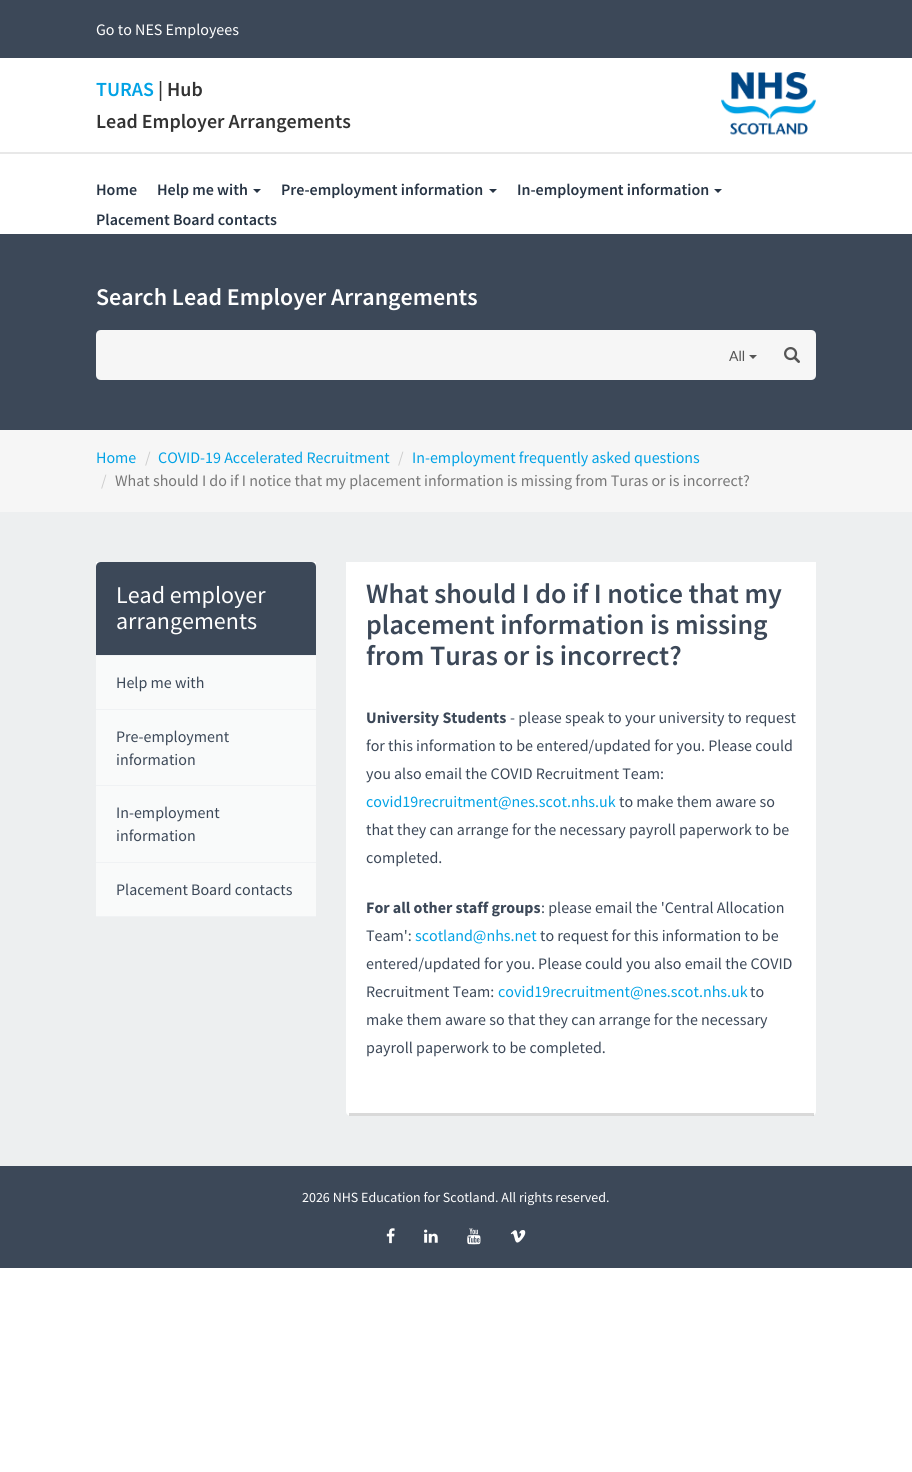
import math
import cairo

surface = cairo.ImageSurface(cairo.FORMAT_RGB24, 912, 1472)
ctx = cairo.Context(surface)
options = cairo.FontOptions()
options.set_hint_metrics(cairo.HINT_METRICS_OFF)
options.set_hint_style(cairo.HINT_STYLE_NONE)
ctx.set_font_options(options)
ctx.set_miter_limit(4)


def picture(path, x, y, w, h):
    ctx.save()
    ctx.set_source_surface(cairo.ImageSurface.create_from_png(path), x, y)
    ctx.rectangle(x, y, w, h)
    ctx.fill()
    ctx.restore()


ctx.set_source_rgb(1, 1, 1)
ctx.paint()
ctx.set_source_rgb(0.235, 0.282, 0.345)
ctx.rectangle(0, 0, 912, 58)
ctx.fill()
ctx.select_font_face("Source Sans Pro")
ctx.set_font_size(16)
ctx.set_source_rgb(1, 1, 1)
ctx.move_to(96, 35)
ctx.show_text("Go to NES Employees")
ctx.set_source_rgb(0.91, 0.91, 0.91)
ctx.rectangle(0, 152, 912, 2)
ctx.fill()
ctx.select_font_face("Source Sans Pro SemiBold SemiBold")
ctx.set_font_size(20)
ctx.set_source_rgb(0.004, 0.635, 0.898)
ctx.move_to(96, 96)
ctx.show_text("TURAS")
ctx.set_source_rgb(0.2, 0.2, 0.2)
ctx.move_to(158, 96)
ctx.show_text("| Hub")
ctx.move_to(96, 128)
ctx.show_text("Lead Employer Arrangements")
picture("img1.png", 721, 72, 95, 63)
ctx.set_font_size(16)
ctx.set_source_rgb(0.153, 0.204, 0.267)
ctx.move_to(96, 195)
ctx.show_text("Home")
ctx.move_to(157, 195)
ctx.show_text("Help me with")
ctx.new_path()
ctx.move_to(253, 189)
ctx.line_to(261, 189)
ctx.line_to(257, 193)
ctx.close_path()
ctx.fill()
ctx.move_to(281, 195)
ctx.show_text("Pre-employment information")
ctx.new_path()
ctx.move_to(489, 189)
ctx.line_to(497, 189)
ctx.line_to(493, 193)
ctx.close_path()
ctx.fill()
ctx.move_to(517, 195)
ctx.show_text("In-employment information")
ctx.new_path()
ctx.move_to(714, 189)
ctx.line_to(722, 189)
ctx.line_to(718, 193)
ctx.close_path()
ctx.fill()
ctx.move_to(96, 225)
ctx.show_text("Placement Board contacts")
ctx.set_source_rgb(0.235, 0.282, 0.345)
ctx.rectangle(0, 234, 912, 196)
ctx.fill()
ctx.set_font_size(24)
ctx.set_source_rgb(1, 1, 1)
ctx.move_to(96, 305)
ctx.show_text("Search Lead Employer Arrangements")
ctx.set_source_rgb(0.961, 0.961, 0.961)
ctx.new_path()
ctx.move_to(101, 330)
ctx.line_to(718, 330)
ctx.line_to(718, 380)
ctx.line_to(101, 380)
ctx.curve_to(98, 380, 96, 378, 96, 375)
ctx.line_to(96, 335)
ctx.curve_to(96, 332, 98, 330, 101, 330)
ctx.close_path()
ctx.fill()
ctx.rectangle(718, 330, 49, 50)
ctx.fill()
ctx.select_font_face("Lato")
ctx.set_font_size(14)
ctx.set_source_rgb(0.333, 0.333, 0.333)
ctx.move_to(729, 361)
ctx.show_text("All")
ctx.new_path()
ctx.move_to(749, 355)
ctx.line_to(757, 355)
ctx.line_to(753, 359)
ctx.close_path()
ctx.fill()
ctx.set_source_rgb(0.961, 0.961, 0.961)
ctx.new_path()
ctx.move_to(767, 330)
ctx.line_to(811, 330)
ctx.curve_to(814, 330, 816, 332, 816, 335)
ctx.line_to(816, 375)
ctx.curve_to(816, 378, 814, 380, 811, 380)
ctx.line_to(767, 380)
ctx.close_path()
ctx.fill()
picture("img2.png", 784, 347, 16, 16)
ctx.rectangle(0, 430, 912, 82)
ctx.fill()
ctx.select_font_face("Source Sans Pro")
ctx.set_font_size(16)
ctx.set_source_rgb(0.004, 0.635, 0.898)
ctx.move_to(96, 463)
ctx.show_text("Home")
ctx.set_source_rgb(0.8, 0.8, 0.8)
ctx.move_to(145, 463)
ctx.show_text("/")
ctx.set_source_rgb(0.004, 0.635, 0.898)
ctx.move_to(158, 463)
ctx.show_text("COVID-19 Accelerated Recruitment")
ctx.set_source_rgb(0.8, 0.8, 0.8)
ctx.move_to(398, 463)
ctx.show_text("/")
ctx.set_source_rgb(0.004, 0.635, 0.898)
ctx.move_to(412, 463)
ctx.show_text("In-employment frequently asked questions")
ctx.set_source_rgb(0.8, 0.8, 0.8)
ctx.move_to(101, 486)
ctx.show_text("/")
ctx.set_source_rgb(0.467, 0.467, 0.467)
ctx.move_to(115, 486)
ctx.show_text("What should I do if I notice that my placement information is missing from Turas or is incorrect?")
ctx.set_source_rgb(0.929, 0.937, 0.941)
ctx.rectangle(0, 512, 912, 654)
ctx.fill()
ctx.set_source_rgb(1, 1, 1)
ctx.rectangle(96, 562, 220, 5)
ctx.fill()
ctx.set_source_rgb(0.235, 0.282, 0.345)
ctx.new_path()
ctx.move_to(101, 562)
ctx.line_to(311, 562)
ctx.curve_to(314, 562, 316, 564, 316, 567)
ctx.line_to(316, 656)
ctx.line_to(96, 656)
ctx.line_to(96, 567)
ctx.curve_to(96, 564, 98, 562, 101, 562)
ctx.close_path()
ctx.fill()
ctx.set_source_rgb(0.941, 0.949, 0.957)
ctx.rectangle(96, 655, 220, 1)
ctx.fill()
ctx.set_font_size(24)
ctx.set_source_rgb(1, 1, 1)
ctx.move_to(116, 603)
ctx.show_text("Lead employer")
ctx.move_to(116, 629)
ctx.show_text("arrangements")
ctx.set_source_rgb(0.976, 0.98, 0.98)
ctx.rectangle(96, 656, 220, 53)
ctx.fill()
ctx.set_source_rgb(0.941, 0.949, 0.957)
ctx.rectangle(96, 709, 220, 1)
ctx.fill()
ctx.set_font_size(16)
ctx.set_source_rgb(0.235, 0.282, 0.345)
ctx.move_to(116, 688)
ctx.show_text("Help me with")
ctx.set_source_rgb(0.976, 0.98, 0.98)
ctx.rectangle(96, 710, 220, 75)
ctx.fill()
ctx.set_source_rgb(0.941, 0.949, 0.957)
ctx.rectangle(96, 785, 220, 1)
ctx.fill()
ctx.set_source_rgb(0.235, 0.282, 0.345)
ctx.move_to(116, 742)
ctx.show_text("Pre-employment")
ctx.move_to(116, 765)
ctx.show_text("information")
ctx.set_source_rgb(0.976, 0.98, 0.98)
ctx.rectangle(96, 786, 220, 76)
ctx.fill()
ctx.set_source_rgb(0.941, 0.949, 0.957)
ctx.rectangle(96, 862, 220, 1)
ctx.fill()
ctx.set_source_rgb(0.235, 0.282, 0.345)
ctx.move_to(116, 818)
ctx.show_text("In-employment")
ctx.move_to(116, 841)
ctx.show_text("information")
ctx.set_source_rgb(0.976, 0.98, 0.98)
ctx.rectangle(96, 863, 220, 53)
ctx.fill()
ctx.set_source_rgb(0.941, 0.949, 0.957)
ctx.rectangle(96, 916, 220, 1)
ctx.fill()
ctx.set_source_rgb(0.235, 0.282, 0.345)
ctx.move_to(116, 895)
ctx.show_text("Placement Board contacts")
ctx.set_source_rgb(1, 1, 1)
ctx.new_path()
ctx.move_to(346, 562)
ctx.line_to(816, 562)
ctx.line_to(816, 1111)
ctx.curve_to(816, 1114, 814, 1116, 811, 1116)
ctx.line_to(351, 1116)
ctx.curve_to(348, 1116, 346, 1114, 346, 1111)
ctx.close_path()
ctx.fill()
ctx.set_source_rgba(0, 0, 0, 0.15)
ctx.rectangle(349, 1113, 465, 3)
ctx.fill()
ctx.select_font_face("Source Sans Pro SemiBold SemiBold")
ctx.set_font_size(28)
ctx.set_source_rgb(0.235, 0.282, 0.345)
ctx.move_to(366, 603)
ctx.show_text("What should I do if I notice that my")
ctx.move_to(366, 634)
ctx.show_text("placement information is missing")
ctx.move_to(366, 665)
ctx.show_text("from Turas or is incorrect?")
ctx.select_font_face("Source Sans Pro", cairo.FONT_SLANT_NORMAL, cairo.FONT_WEIGHT_BOLD)
ctx.set_font_size(16)
ctx.move_to(366, 723)
ctx.show_text("University Students")
ctx.select_font_face("Source Sans Pro")
ctx.move_to(510, 723)
ctx.show_text("- please speak to your university to request")
ctx.move_to(366, 751)
ctx.show_text("for this information to be entered/updated for you. Please could")
ctx.move_to(366, 779)
ctx.show_text("you also email the COVID Recruitment Team:")
ctx.set_source_rgb(0.004, 0.635, 0.898)
ctx.move_to(366, 807)
ctx.show_text("covid19recruitment@nes.scot.nhs.uk")
ctx.set_source_rgb(0.235, 0.282, 0.345)
ctx.move_to(619, 807)
ctx.show_text("to make them aware so")
ctx.move_to(366, 835)
ctx.show_text("that they can arrange for the necessary payroll paperwork to be")
ctx.move_to(366, 863)
ctx.show_text("completed.")
ctx.select_font_face("Source Sans Pro", cairo.FONT_SLANT_NORMAL, cairo.FONT_WEIGHT_BOLD)
ctx.move_to(366, 913)
ctx.show_text("For all other staff groups")
ctx.select_font_face("Source Sans Pro")
ctx.move_to(541, 913)
ctx.show_text(": please email the 'Central Allocation")
ctx.move_to(366, 941)
ctx.show_text("Team':")
ctx.set_source_rgb(0.004, 0.635, 0.898)
ctx.move_to(415, 941)
ctx.show_text("scotland@nhs.net")
ctx.set_source_rgb(0.235, 0.282, 0.345)
ctx.move_to(540, 941)
ctx.show_text("to request for this information to be")
ctx.move_to(366, 969)
ctx.show_text("entered/updated for you. Please could you also email the COVID")
ctx.move_to(366, 997)
ctx.show_text("Recruitment Team:")
ctx.set_source_rgb(0.004, 0.635, 0.898)
ctx.move_to(498, 997)
ctx.show_text("covid19recruitment@nes.scot.nhs.uk")
ctx.set_source_rgb(0.235, 0.282, 0.345)
ctx.move_to(750, 997)
ctx.show_text("to")
ctx.move_to(366, 1025)
ctx.show_text("make them aware so that they can arrange for the necessary")
ctx.move_to(366, 1053)
ctx.show_text("payroll paperwork to be completed.")
ctx.rectangle(0, 1166, 912, 102)
ctx.fill()
ctx.set_font_size(14)
ctx.set_source_rgb(1, 1, 1)
ctx.move_to(302, 1202)
ctx.show_text("2026 NHS Education for Scotland. All rights reserved.")
picture("img3.png", 386, 1228, 9, 16)
picture("img4.png", 424, 1229, 14, 14)
picture("img5.png", 467, 1228, 14, 17)
picture("img6.png", 510, 1230, 16, 13)
surface.write_to_png("page.png")
